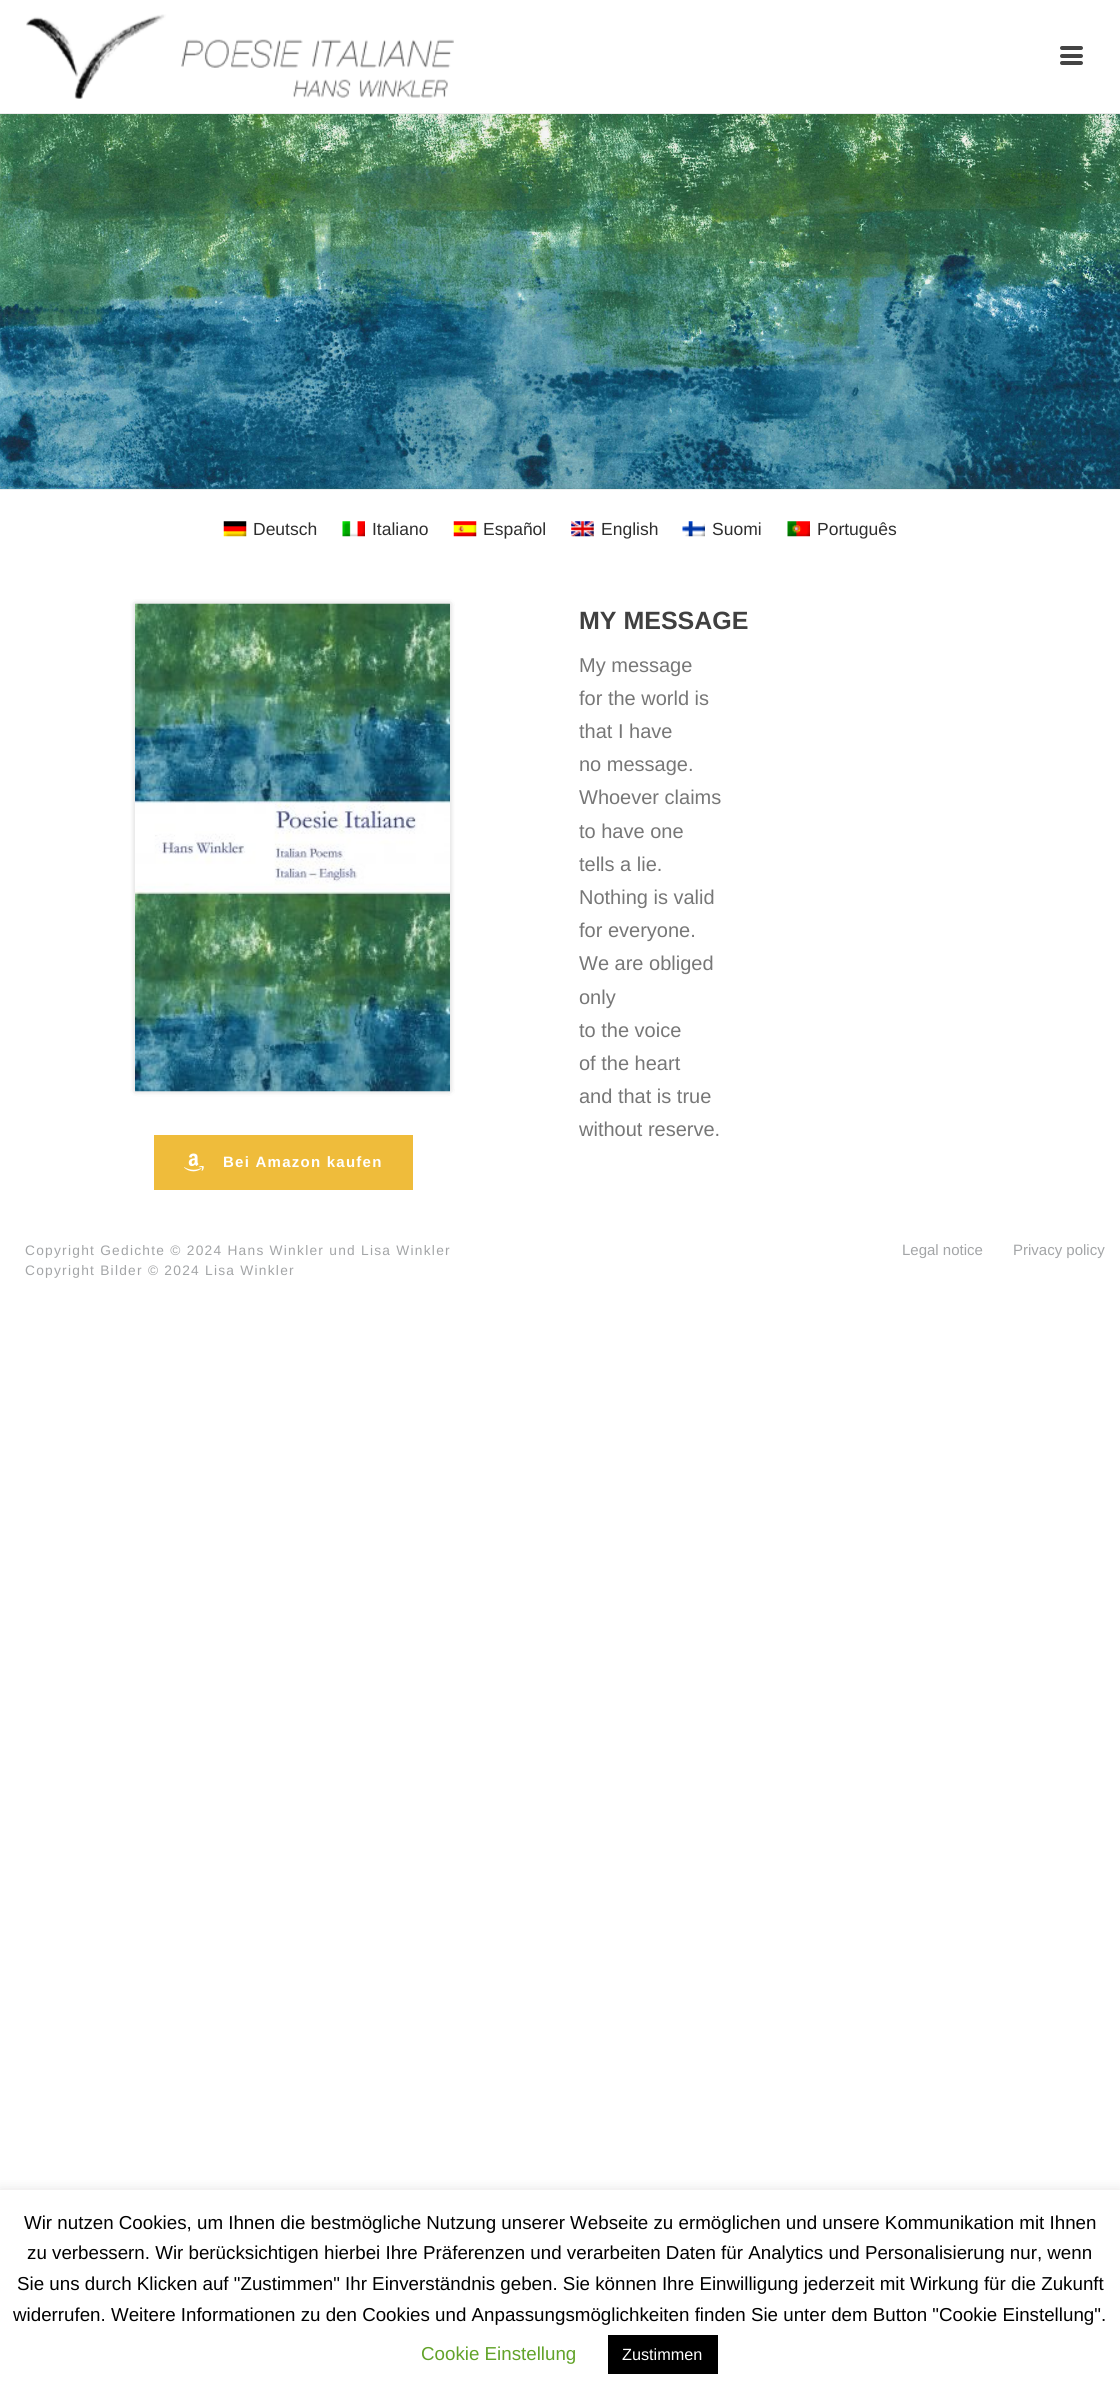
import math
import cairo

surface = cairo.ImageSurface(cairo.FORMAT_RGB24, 1120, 2394)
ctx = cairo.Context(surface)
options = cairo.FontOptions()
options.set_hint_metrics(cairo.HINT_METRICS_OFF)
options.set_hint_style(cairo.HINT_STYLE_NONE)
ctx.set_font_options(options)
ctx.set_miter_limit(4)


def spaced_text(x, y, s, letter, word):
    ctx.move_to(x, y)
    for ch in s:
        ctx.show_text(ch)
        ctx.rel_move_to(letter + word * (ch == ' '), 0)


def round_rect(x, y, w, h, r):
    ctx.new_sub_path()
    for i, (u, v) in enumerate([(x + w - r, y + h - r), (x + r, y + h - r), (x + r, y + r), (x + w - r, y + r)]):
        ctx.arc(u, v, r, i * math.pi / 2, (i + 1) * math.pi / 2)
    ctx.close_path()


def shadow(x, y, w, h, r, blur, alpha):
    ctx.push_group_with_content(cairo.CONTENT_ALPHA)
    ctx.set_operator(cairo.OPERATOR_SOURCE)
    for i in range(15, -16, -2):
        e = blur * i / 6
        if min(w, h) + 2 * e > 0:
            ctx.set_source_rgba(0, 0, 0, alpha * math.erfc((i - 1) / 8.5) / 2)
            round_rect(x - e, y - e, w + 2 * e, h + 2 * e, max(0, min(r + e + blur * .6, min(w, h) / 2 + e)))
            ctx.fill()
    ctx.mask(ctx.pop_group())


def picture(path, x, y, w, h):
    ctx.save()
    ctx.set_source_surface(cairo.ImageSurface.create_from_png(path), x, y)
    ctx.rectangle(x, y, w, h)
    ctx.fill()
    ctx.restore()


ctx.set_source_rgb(1, 1, 1)
ctx.paint()
picture("img1.png", 0, 114, 1120, 375)
ctx.set_source_rgb(0.929, 0.929, 0.929)
ctx.rectangle(0, 489, 1120, 1)
ctx.fill()
ctx.rectangle(0, 113, 1120, 1)
ctx.fill()
picture("img2.png", 26, 14, 428, 85)
ctx.set_source_rgb(0.267, 0.267, 0.267)
round_rect(1060, 46, 23, 4, 2)
ctx.fill()
round_rect(1060, 54, 23, 4, 2)
ctx.fill()
round_rect(1060, 61, 23, 4, 2)
ctx.fill()
picture("img3.png", 223, 521, 24, 16)
ctx.select_font_face("Liberation Sans")
ctx.set_font_size(17.5)
ctx.set_source_rgb(0.18, 0.18, 0.18)
ctx.move_to(253, 535)
ctx.show_text("Deutsch")
picture("img4.png", 342, 521, 23, 16)
ctx.move_to(372, 535)
ctx.show_text("Italiano")
picture("img5.png", 453, 521, 24, 16)
ctx.move_to(483, 535)
ctx.show_text("Español")
picture("img6.png", 571, 521, 23, 16)
ctx.move_to(601, 535)
ctx.show_text("English")
picture("img7.png", 682, 521, 23, 16)
ctx.move_to(712, 535)
ctx.show_text("Suomi")
picture("img8.png", 787, 521, 23, 16)
ctx.move_to(817, 535)
ctx.show_text("Português")
ctx.select_font_face("Liberation Sans", cairo.FONT_SLANT_NORMAL, cairo.FONT_WEIGHT_BOLD)
ctx.set_font_size(25)
ctx.set_source_rgb(0.251, 0.251, 0.251)
ctx.move_to(579, 629)
ctx.show_text("MY MESSAGE")
ctx.select_font_face("Liberation Sans")
ctx.set_font_size(20)
ctx.set_source_rgb(0.467, 0.467, 0.467)
ctx.move_to(579, 672)
ctx.show_text("My message")
ctx.move_to(579, 705)
ctx.show_text("for the world is")
ctx.move_to(579, 738)
ctx.show_text("that I have")
ctx.move_to(579, 771)
ctx.show_text("no message.")
ctx.move_to(579, 804)
ctx.show_text("Whoever claims")
ctx.move_to(579, 838)
ctx.show_text("to have one")
ctx.move_to(579, 871)
ctx.show_text("tells a lie.")
ctx.move_to(579, 904)
ctx.show_text("Nothing is valid")
ctx.move_to(579, 937)
ctx.show_text("for everyone.")
ctx.move_to(579, 970)
ctx.show_text("We are obliged")
ctx.move_to(579, 1004)
ctx.show_text("only")
ctx.move_to(579, 1037)
ctx.show_text("to the voice")
ctx.move_to(579, 1070)
ctx.show_text("of the heart")
ctx.move_to(579, 1103)
ctx.show_text("and that is true")
ctx.move_to(579, 1136)
ctx.show_text("without reserve.")
ctx.set_source_rgb(0, 0, 0)
shadow(135, 604, 315, 487, 0, 3, 0.1)
shadow(135, 604, 315, 487, 0, 3, 0.1)
picture("img9.png", 135, 603, 315, 489)
ctx.set_source_rgb(0.937, 0.737, 0.231)
ctx.rectangle(154, 1135, 259, 55)
ctx.fill()
picture("img10.png", 184, 1153, 20, 19)
ctx.select_font_face("Liberation Sans", cairo.FONT_SLANT_NORMAL, cairo.FONT_WEIGHT_BOLD)
ctx.set_font_size(15)
ctx.set_source_rgb(1, 1, 1)
spaced_text(223, 1167, "Bei Amazon kaufen", 1.25, 0)
ctx.select_font_face("Liberation Sans")
ctx.set_font_size(13.75)
ctx.set_source_rgb(0.639, 0.647, 0.655)
spaced_text(25, 1255, "Copyright Gedichte © 2024 Hans Winkler und Lisa Winkler", 1.25, 0)
spaced_text(25, 1275, "Copyright Bilder © 2024 Lisa Winkler", 1.25, 0)
ctx.set_font_size(15)
ctx.move_to(902, 1255)
ctx.show_text("Legal notice")
ctx.move_to(1013, 1255)
ctx.show_text("Privacy policy")
ctx.save()
ctx.rectangle(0, 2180, 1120, 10)
ctx.clip()
ctx.set_source_rgb(0.675, 0.671, 0.671)
shadow(0, 2189, 1120, 205, 0, 6, 0.3)
ctx.restore()
ctx.set_font_size(18.75)
ctx.set_source_rgb(0, 0, 0)
ctx.move_to(24, 2229)
ctx.show_text("Wir nutzen Cookies, um Ihnen die bestmögliche Nutzung unserer Webseite zu ermöglichen und unsere Kommunikation mit Ihnen")
ctx.move_to(27, 2259)
ctx.show_text("zu verbessern. Wir berücksichtigen hierbei Ihre Präferenzen und verarbeiten Daten für Analytics und Personalisierung nur, wenn")
ctx.move_to(17, 2290)
ctx.show_text("Sie uns durch Klicken auf \"Zustimmen\" Ihr Einverständnis geben. Sie können Ihre Einwilligung jederzeit mit Wirkung für die Zukunft")
ctx.move_to(13, 2321)
ctx.show_text("widerrufen. Weitere Informationen zu den Cookies und Anpassungsmöglichkeiten finden Sie unter dem Button \"Cookie Einstellung\".")
ctx.set_source_rgb(0.384, 0.639, 0.161)
ctx.move_to(421, 2360)
ctx.show_text("Cookie Einstellung")
ctx.set_source_rgb(0, 0, 0)
ctx.rectangle(608, 2335, 110, 39)
ctx.fill()
ctx.set_font_size(16.25)
ctx.set_source_rgb(1, 1, 1)
ctx.move_to(622, 2360)
ctx.show_text("Zustimmen")
surface.write_to_png("page.png")
